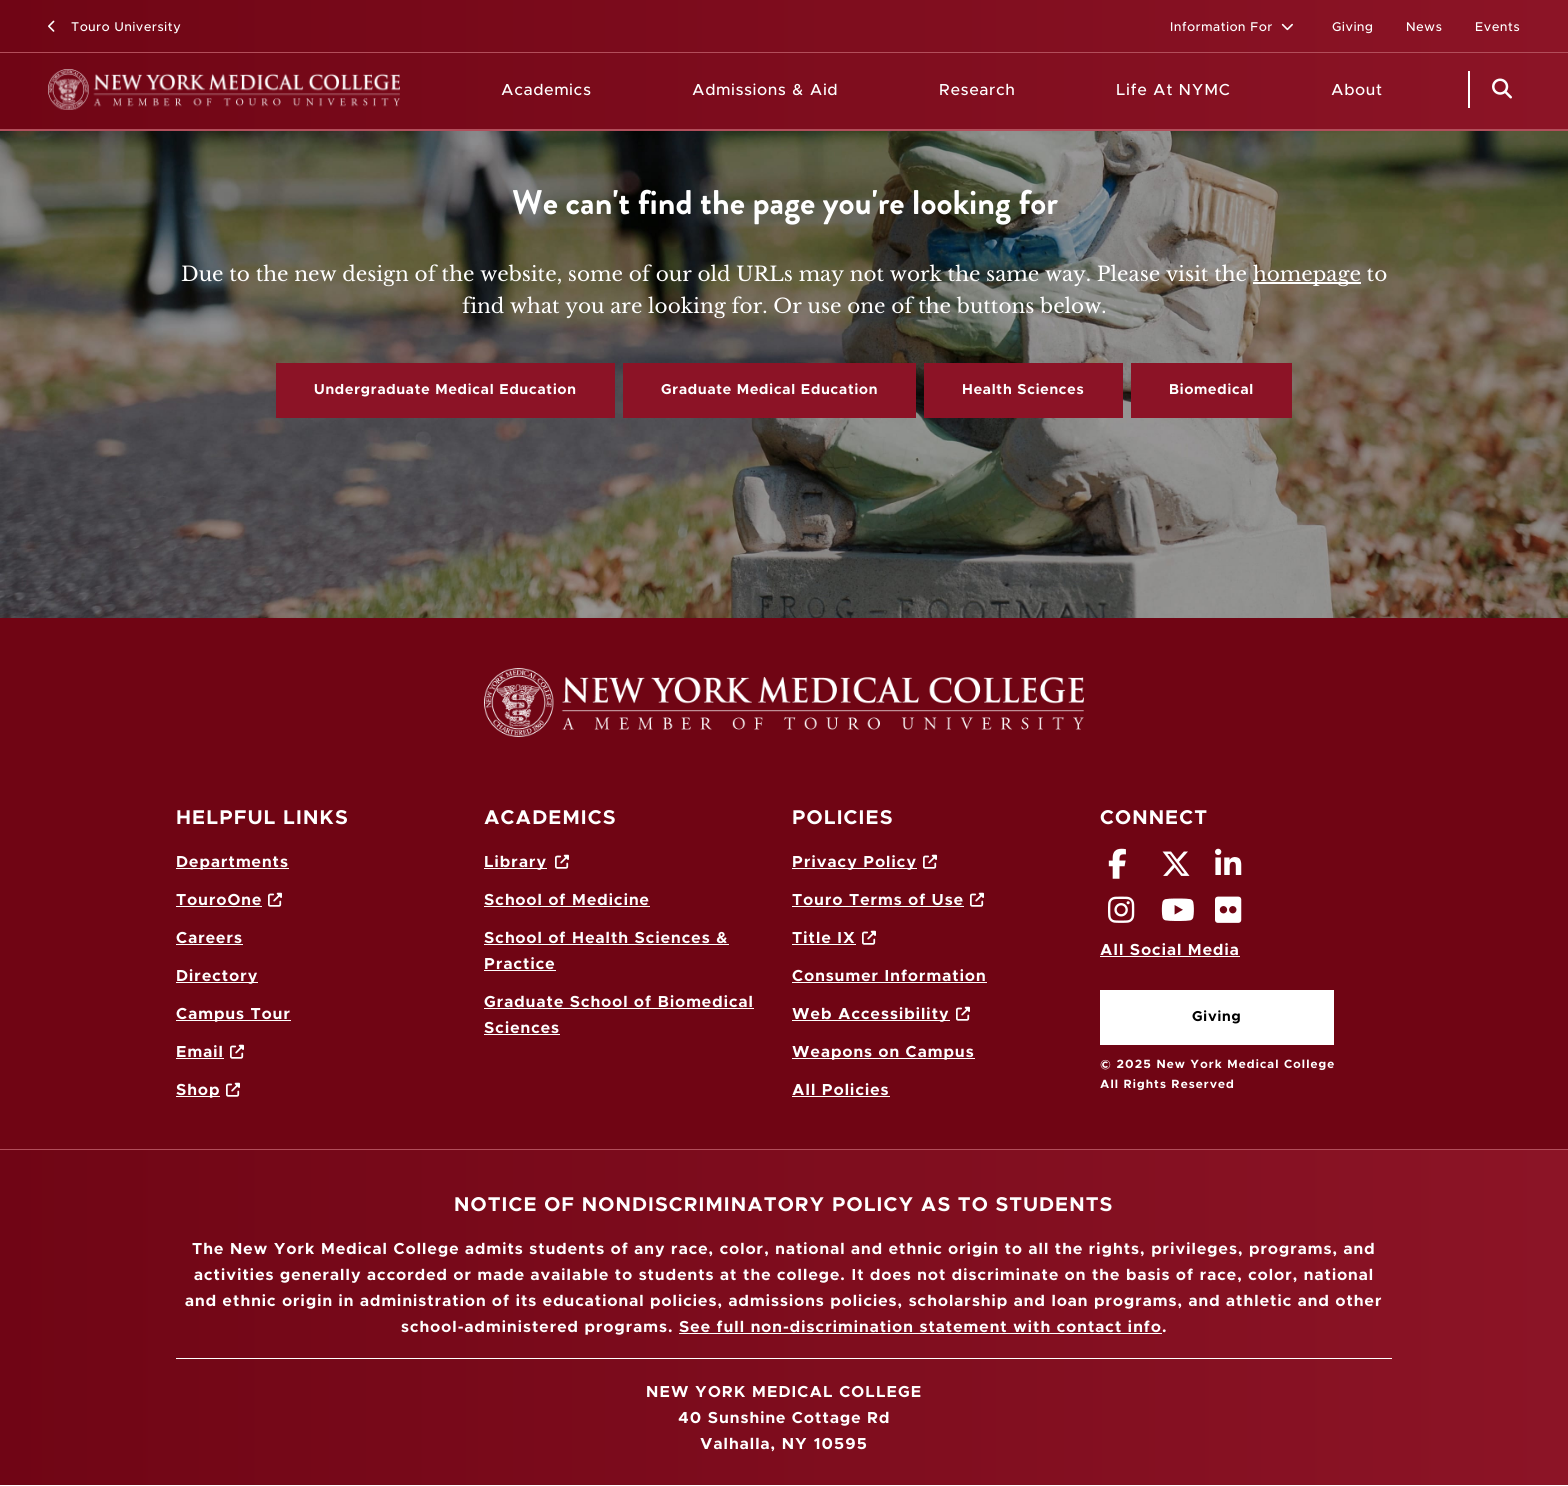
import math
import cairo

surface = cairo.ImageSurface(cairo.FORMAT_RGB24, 1568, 1486)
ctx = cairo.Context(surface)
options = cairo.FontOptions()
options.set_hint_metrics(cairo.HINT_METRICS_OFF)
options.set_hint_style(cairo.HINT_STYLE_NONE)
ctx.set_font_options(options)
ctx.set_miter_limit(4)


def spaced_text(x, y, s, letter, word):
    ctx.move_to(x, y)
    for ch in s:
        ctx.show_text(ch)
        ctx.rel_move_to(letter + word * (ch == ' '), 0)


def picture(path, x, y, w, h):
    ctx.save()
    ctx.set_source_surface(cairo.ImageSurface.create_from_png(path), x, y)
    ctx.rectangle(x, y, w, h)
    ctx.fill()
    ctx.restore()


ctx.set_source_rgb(1, 1, 1)
ctx.paint()
gradient = cairo.LinearGradient(0, 26, 1568, 26)
gradient.add_color_stop_rgba(0, 0.439, 0.02, 0.082, 1)
gradient.add_color_stop_rgba(1, 0.549, 0.078, 0.149, 1)
ctx.set_source(gradient)
ctx.rectangle(0, 0, 1568, 52)
ctx.fill()
ctx.set_source_rgb(0.698, 0.306, 0.357)
ctx.rectangle(0, 52, 1568, 1)
ctx.fill()
picture("img1.png", 48, 20, 7, 12)
ctx.select_font_face("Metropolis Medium")
ctx.set_font_size(12.75)
ctx.set_source_rgb(1, 1, 1)
spaced_text(71, 31, "Touro University", 0.75, 0)
spaced_text(1170, 31, "Information For", 0.75, 0)
picture("img2.png", 1281, 23, 12, 8)
spaced_text(1332, 31, "Giving", 0.75, 0)
spaced_text(1406, 31, "News", 0.75, 0)
spaced_text(1475, 31, "Events", 0.75, 0)
gradient = cairo.LinearGradient(0, 90, 1568, 90)
gradient.add_color_stop_rgba(0, 0.439, 0.02, 0.082, 1)
gradient.add_color_stop_rgba(1, 0.549, 0.078, 0.149, 1)
ctx.set_source(gradient)
ctx.rectangle(0, 53, 1568, 76)
ctx.fill()
ctx.set_source_rgb(0.698, 0.306, 0.357)
ctx.rectangle(0, 129, 1568, 2)
ctx.fill()
picture("img3.png", 48, 69, 352, 41)
ctx.set_font_size(16)
ctx.set_source_rgb(1, 1, 1)
spaced_text(501, 95, "Academics", 1, 0)
spaced_text(692, 95, "Admissions & Aid", 1, 0)
spaced_text(939, 95, "Research", 1, 0)
spaced_text(1116, 95, "Life At NYMC", 1, 0)
spaced_text(1331, 95, "About", 1, 0)
ctx.rectangle(1468, 71, 2, 37)
ctx.fill()
picture("img4.png", 1492, 78, 20, 21)
picture("img5.png", 0, 131, 1568, 487)
ctx.select_font_face("Brandon Grotesque", cairo.FONT_SLANT_NORMAL, cairo.FONT_WEIGHT_BOLD)
ctx.set_font_size(34.2)
ctx.move_to(512, 214)
ctx.show_text("We can't find the page you're looking for")
ctx.select_font_face("Libre Baskerville")
ctx.set_font_size(20)
ctx.move_to(181, 281)
ctx.show_text("Due to the new design of the website, some of our old URLs may not work the same way. Please visit the")
ctx.rectangle(1253, 282, 108, 2)
ctx.fill()
ctx.move_to(1253, 281)
ctx.show_text("homepage to")
ctx.move_to(462, 313)
ctx.show_text("find what you are looking for. Or use one of the buttons below.")
ctx.set_source_rgb(0.549, 0.078, 0.149)
ctx.rectangle(276, 363, 339, 55)
ctx.fill()
ctx.select_font_face("Metropolis", cairo.FONT_SLANT_NORMAL, cairo.FONT_WEIGHT_BOLD)
ctx.set_font_size(14.4)
ctx.set_source_rgb(1, 1, 1)
spaced_text(314, 394, "Undergraduate Medical Education", 0.85, 0)
ctx.set_source_rgb(0.549, 0.078, 0.149)
ctx.rectangle(623, 363, 293, 55)
ctx.fill()
ctx.set_source_rgb(1, 1, 1)
spaced_text(661, 394, "Graduate Medical Education", 0.85, 0)
ctx.set_source_rgb(0.549, 0.078, 0.149)
ctx.rectangle(924, 363, 199, 55)
ctx.fill()
ctx.set_source_rgb(1, 1, 1)
spaced_text(962, 394, "Health Sciences", 0.85, 0)
ctx.set_source_rgb(0.549, 0.078, 0.149)
ctx.rectangle(1131, 363, 161, 55)
ctx.fill()
ctx.set_source_rgb(1, 1, 1)
spaced_text(1169, 394, "Biomedical", 0.85, 0)
ctx.set_source_rgb(0.439, 0.02, 0.082)
ctx.rectangle(0, 618, 1568, 531)
ctx.fill()
picture("img6.png", 484, 668, 600, 69)
ctx.set_font_size(20)
ctx.set_source_rgb(1, 1, 1)
spaced_text(176, 824, "HELPFUL LINKS", 1.12, 0)
ctx.rectangle(176, 868, 113, 1)
ctx.fill()
ctx.set_font_size(16)
spaced_text(176, 867, "Departments", 1.12, 0)
spaced_text(176, 905, "TouroOne", 1.12, 0)
ctx.rectangle(176, 906, 86, 1)
ctx.fill()
picture("img7.png", 268, 892, 14, 15)
spaced_text(176, 943, "Careers", 1.12, 0)
ctx.rectangle(176, 944, 67, 1)
ctx.fill()
ctx.rectangle(176, 982, 82, 1)
ctx.fill()
spaced_text(176, 981, "Directory", 1.12, 0)
ctx.rectangle(176, 1020, 115, 1)
ctx.fill()
spaced_text(176, 1019, "Campus Tour", 1.12, 0)
spaced_text(176, 1057, "Email", 1.12, 0)
ctx.rectangle(176, 1058, 48, 1)
ctx.fill()
picture("img7.png", 230, 1044, 14, 15)
ctx.rectangle(176, 1096, 44, 1)
ctx.fill()
spaced_text(176, 1095, "Shop", 1.12, 0)
picture("img7.png", 226, 1082, 14, 15)
ctx.set_font_size(20)
spaced_text(484, 824, "ACADEMICS", 1.12, 0)
ctx.rectangle(484, 868, 63, 1)
ctx.fill()
ctx.set_font_size(16)
spaced_text(484, 867, "Library", 1.12, 0)
picture("img7.png", 555, 854, 14, 15)
spaced_text(484, 905, "School of Medicine", 1.12, 0)
ctx.rectangle(484, 906, 166, 1)
ctx.fill()
spaced_text(484, 943, "School of Health Sciences &", 1.12, 0)
ctx.rectangle(484, 944, 245, 1)
ctx.fill()
spaced_text(484, 969, "Practice", 1.12, 0)
ctx.rectangle(484, 970, 72, 1)
ctx.fill()
spaced_text(484, 1007, "Graduate School of Biomedical", 1.12, 0)
ctx.rectangle(484, 1008, 270, 1)
ctx.fill()
spaced_text(484, 1033, "Sciences", 1.12, 0)
ctx.rectangle(484, 1034, 76, 1)
ctx.fill()
ctx.set_font_size(20)
spaced_text(792, 824, "POLICIES", 1.12, 0)
ctx.rectangle(792, 868, 125, 1)
ctx.fill()
ctx.set_font_size(16)
spaced_text(792, 867, "Privacy Policy", 1.12, 0)
picture("img7.png", 923, 854, 14, 15)
spaced_text(792, 905, "Touro Terms of Use", 1.12, 0)
ctx.rectangle(792, 906, 172, 1)
ctx.fill()
picture("img7.png", 970, 892, 14, 15)
spaced_text(792, 943, "Title IX", 1.12, 0)
ctx.rectangle(792, 944, 64, 1)
ctx.fill()
picture("img7.png", 862, 930, 14, 15)
spaced_text(792, 981, "Consumer Information", 1.12, 0)
ctx.rectangle(792, 982, 195, 1)
ctx.fill()
ctx.rectangle(792, 1020, 158, 1)
ctx.fill()
spaced_text(792, 1019, "Web Accessibility", 1.12, 0)
picture("img7.png", 956, 1006, 14, 15)
ctx.rectangle(792, 1058, 183, 1)
ctx.fill()
spaced_text(792, 1057, "Weapons on Campus", 1.12, 0)
spaced_text(792, 1095, "All Policies", 1.12, 0)
ctx.rectangle(792, 1096, 98, 1)
ctx.fill()
ctx.set_font_size(20)
spaced_text(1100, 824, "CONNECT", 1.12, 0)
picture("img8.png", 1108, 848, 18, 31)
picture("img9.png", 1162, 851, 28, 25)
picture("img10.png", 1215, 848, 27, 27)
picture("img11.png", 1108, 896, 27, 27)
picture("img12.png", 1161, 898, 33, 23)
picture("img13.png", 1215, 896, 27, 27)
ctx.set_font_size(16)
spaced_text(1100, 955, "All Social Media", 1.12, 0)
ctx.rectangle(1100, 956, 140, 1)
ctx.fill()
ctx.rectangle(1100, 990, 234, 55)
ctx.fill()
ctx.set_font_size(14.4)
ctx.set_source_rgb(0, 0, 0)
spaced_text(1192, 1021, "Giving", 0.85, 0)
ctx.set_font_size(12)
ctx.set_source_rgb(1, 1, 1)
spaced_text(1100, 1068, "© 2025 New York Medical College", 1.12, 0)
spaced_text(1100, 1088, "All Rights Reserved", 1.12, 0)
gradient = cairo.LinearGradient(0, 1318, 1568, 1318)
gradient.add_color_stop_rgba(0, 0.439, 0.02, 0.082, 1)
gradient.add_color_stop_rgba(1, 0.549, 0.078, 0.149, 1)
ctx.set_source(gradient)
ctx.rectangle(0, 1150, 1568, 335)
ctx.fill()
ctx.set_source_rgb(0.698, 0.306, 0.357)
ctx.rectangle(0, 1149, 1568, 1)
ctx.fill()
ctx.set_font_size(20)
ctx.set_source_rgb(1, 1, 1)
spaced_text(454, 1211, "NOTICE OF NONDISCRIMINATORY POLICY AS TO STUDENTS", 1.12, 0)
ctx.set_font_size(16)
spaced_text(192, 1254, "The New York Medical College admits students of any race, color, national and ethnic origin to all the rights, privileges, programs, and", 1.12, 0)
spaced_text(194, 1280, "activities generally accorded or made available to students at the college. It does not discriminate on the basis of race, color, national", 1.12, 0)
spaced_text(185, 1306, "and ethnic origin in administration of its educational policies, admissions policies, scholarship and loan programs, and athletic and other", 1.12, 0)
spaced_text(401, 1332, "school-administered programs. See full non-discrimination statement with contact info.", 1.12, 0)
ctx.rectangle(679, 1333, 483, 1)
ctx.fill()
ctx.rectangle(176, 1358, 1216, 1)
ctx.fill()
spaced_text(646, 1397, "NEW YORK MEDICAL COLLEGE", 1.12, 0)
spaced_text(678, 1423, "40 Sunshine Cottage Rd", 1.12, 0)
spaced_text(700, 1449, "Valhalla, NY 10595", 1.12, 0)
surface.write_to_png("page.png")
